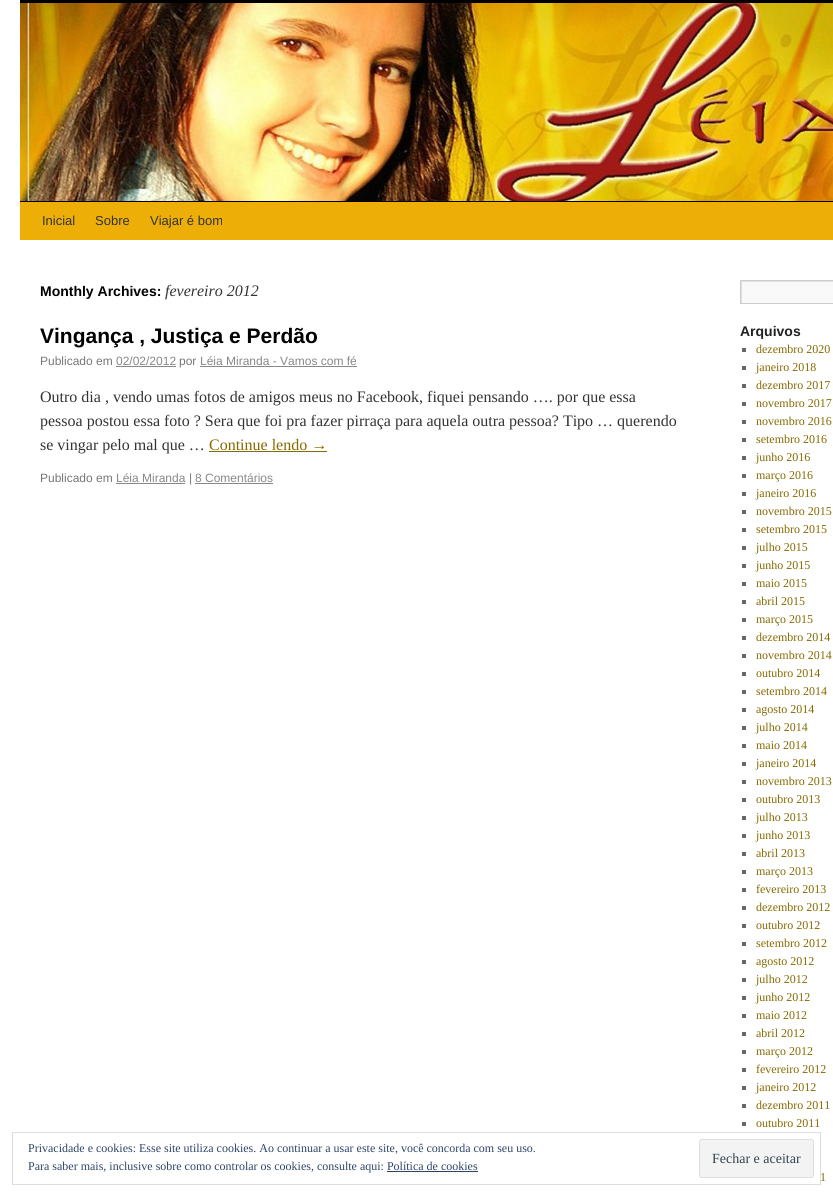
import math
import cairo

surface = cairo.ImageSurface(cairo.FORMAT_RGB24, 833, 1197)
ctx = cairo.Context(surface)
options = cairo.FontOptions()
options.set_hint_metrics(cairo.HINT_METRICS_OFF)
options.set_hint_style(cairo.HINT_STYLE_NONE)
ctx.set_font_options(options)
ctx.set_miter_limit(4)


def round_rect(x, y, w, h, r):
    ctx.new_sub_path()
    for i, (u, v) in enumerate([(x + w - r, y + h - r), (x + r, y + h - r), (x + r, y + r), (x + w - r, y + r)]):
        ctx.arc(u, v, r, i * math.pi / 2, (i + 1) * math.pi / 2)
    ctx.close_path()


def picture(path, x, y, w, h):
    ctx.save()
    ctx.set_source_surface(cairo.ImageSurface.create_from_png(path), x, y)
    ctx.rectangle(x, y, w, h)
    ctx.fill()
    ctx.restore()


ctx.set_source_rgb(1, 1, 1)
ctx.paint()
ctx.set_source_rgb(0, 0, 0)
ctx.rectangle(20, 0, 813, 3)
ctx.fill()
ctx.rectangle(20, 201, 813, 1)
ctx.fill()
picture("img1.png", 20, 3, 813, 198)
ctx.set_source_rgb(0.929, 0.682, 0.035)
ctx.rectangle(20, 202, 813, 38)
ctx.fill()
ctx.select_font_face("Liberation Sans")
ctx.set_font_size(13)
ctx.set_source_rgb(0.2, 0.2, 0.2)
ctx.move_to(42, 225)
ctx.show_text("Inicial")
ctx.move_to(95, 225)
ctx.show_text("Sobre")
ctx.move_to(150, 225)
ctx.show_text("Viajar é bom")
ctx.select_font_face("Liberation Sans", cairo.FONT_SLANT_NORMAL, cairo.FONT_WEIGHT_BOLD)
ctx.set_font_size(14)
ctx.set_source_rgb(0, 0, 0)
ctx.move_to(40, 296)
ctx.show_text("Monthly Archives:")
ctx.select_font_face("Liberation Serif", cairo.FONT_SLANT_ITALIC)
ctx.set_font_size(16)
ctx.set_source_rgb(0.2, 0.2, 0.2)
ctx.move_to(165, 296)
ctx.show_text("fevereiro 2012")
ctx.select_font_face("Liberation Sans", cairo.FONT_SLANT_NORMAL, cairo.FONT_WEIGHT_BOLD)
ctx.set_font_size(21)
ctx.set_source_rgb(0, 0, 0)
ctx.move_to(40, 343)
ctx.show_text("Vingança , Justiça e Perdão")
ctx.select_font_face("Liberation Sans")
ctx.set_font_size(12)
ctx.set_source_rgb(0.467, 0.467, 0.467)
ctx.move_to(40, 365)
ctx.show_text("Publicado em")
ctx.set_source_rgb(0.533, 0.533, 0.533)
ctx.move_to(116, 365)
ctx.show_text("02/02/2012")
ctx.rectangle(116, 366, 60, 1)
ctx.fill()
ctx.set_source_rgb(0.467, 0.467, 0.467)
ctx.move_to(179, 365)
ctx.show_text("por")
ctx.set_source_rgb(0.533, 0.533, 0.533)
ctx.move_to(200, 365)
ctx.show_text("Léia Miranda - Vamos com fé")
ctx.rectangle(200, 366, 157, 1)
ctx.fill()
ctx.select_font_face("Liberation Serif")
ctx.set_font_size(16)
ctx.set_source_rgb(0.2, 0.2, 0.2)
ctx.move_to(40, 402)
ctx.show_text("Outro dia , vendo umas fotos de amigos meus no Facebook, fiquei pensando …. por que essa")
ctx.move_to(40, 426)
ctx.show_text("pessoa postou essa foto ? Sera que foi pra fazer pirraça para aquela outra pessoa? Tipo … querendo")
ctx.move_to(40, 450)
ctx.show_text("se vingar pelo mal que …")
ctx.set_source_rgb(0.518, 0.416, 0)
ctx.move_to(209, 450)
ctx.show_text("Continue lendo →")
ctx.rectangle(209, 451, 118, 1)
ctx.fill()
ctx.select_font_face("Liberation Sans")
ctx.set_font_size(12)
ctx.set_source_rgb(0.467, 0.467, 0.467)
ctx.move_to(40, 482)
ctx.show_text("Publicado em")
ctx.set_source_rgb(0.533, 0.533, 0.533)
ctx.move_to(116, 482)
ctx.show_text("Léia Miranda")
ctx.rectangle(116, 483, 69, 1)
ctx.fill()
ctx.set_source_rgb(0.467, 0.467, 0.467)
ctx.move_to(189, 482)
ctx.show_text("|")
ctx.set_source_rgb(0.533, 0.533, 0.533)
ctx.move_to(195, 482)
ctx.show_text("8 Comentários")
ctx.rectangle(195, 483, 78, 1)
ctx.fill()
ctx.set_source_rgb(0.976, 0.976, 0.976)
ctx.rectangle(742, 282, 91, 21)
ctx.fill()
ctx.save()
ctx.rectangle(741, 281, 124, 22)
ctx.clip()
ctx.set_source_rgb(0.878, 0.878, 0.878)
ctx.set_fill_rule(cairo.FILL_RULE_EVEN_ODD)
ctx.new_path()
ctx.move_to(642, 182)
ctx.line_to(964, 182)
ctx.line_to(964, 402)
ctx.line_to(642, 402)
ctx.close_path()
ctx.move_to(742, 282)
ctx.line_to(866, 282)
ctx.line_to(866, 304)
ctx.line_to(742, 304)
ctx.close_path()
ctx.fill()
ctx.restore()
ctx.rectangle(740.5, 280.5, 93, 23)
ctx.set_source_rgb(0.8, 0.8, 0.8)
ctx.set_line_width(1)
ctx.stroke()
ctx.select_font_face("Liberation Sans", cairo.FONT_SLANT_NORMAL, cairo.FONT_WEIGHT_BOLD)
ctx.set_font_size(14)
ctx.set_source_rgb(0.133, 0.133, 0.133)
ctx.move_to(740, 336)
ctx.show_text("Arquivos")
ctx.set_source_rgb(0.4, 0.4, 0.4)
ctx.rectangle(742, 348, 4, 4)
ctx.fill()
ctx.select_font_face("Liberation Serif")
ctx.set_font_size(12)
ctx.set_source_rgb(0.518, 0.416, 0)
ctx.move_to(756, 353)
ctx.show_text("dezembro 2020")
ctx.set_source_rgb(0.4, 0.4, 0.4)
ctx.rectangle(742, 366, 4, 4)
ctx.fill()
ctx.set_source_rgb(0.518, 0.416, 0)
ctx.move_to(756, 371)
ctx.show_text("janeiro 2018")
ctx.set_source_rgb(0.4, 0.4, 0.4)
ctx.rectangle(742, 384, 4, 4)
ctx.fill()
ctx.set_source_rgb(0.518, 0.416, 0)
ctx.move_to(756, 389)
ctx.show_text("dezembro 2017")
ctx.set_source_rgb(0.4, 0.4, 0.4)
ctx.rectangle(742, 402, 4, 4)
ctx.fill()
ctx.set_source_rgb(0.518, 0.416, 0)
ctx.move_to(756, 407)
ctx.show_text("novembro 2017")
ctx.set_source_rgb(0.4, 0.4, 0.4)
ctx.rectangle(742, 420, 4, 4)
ctx.fill()
ctx.set_source_rgb(0.518, 0.416, 0)
ctx.move_to(756, 425)
ctx.show_text("novembro 2016")
ctx.set_source_rgb(0.4, 0.4, 0.4)
ctx.rectangle(742, 438, 4, 4)
ctx.fill()
ctx.set_source_rgb(0.518, 0.416, 0)
ctx.move_to(756, 443)
ctx.show_text("setembro 2016")
ctx.set_source_rgb(0.4, 0.4, 0.4)
ctx.rectangle(742, 456, 4, 4)
ctx.fill()
ctx.set_source_rgb(0.518, 0.416, 0)
ctx.move_to(756, 461)
ctx.show_text("junho 2016")
ctx.set_source_rgb(0.4, 0.4, 0.4)
ctx.rectangle(742, 474, 4, 4)
ctx.fill()
ctx.set_source_rgb(0.518, 0.416, 0)
ctx.move_to(756, 479)
ctx.show_text("março 2016")
ctx.set_source_rgb(0.4, 0.4, 0.4)
ctx.rectangle(742, 492, 4, 4)
ctx.fill()
ctx.set_source_rgb(0.518, 0.416, 0)
ctx.move_to(756, 497)
ctx.show_text("janeiro 2016")
ctx.set_source_rgb(0.4, 0.4, 0.4)
ctx.rectangle(742, 510, 4, 4)
ctx.fill()
ctx.set_source_rgb(0.518, 0.416, 0)
ctx.move_to(756, 515)
ctx.show_text("novembro 2015")
ctx.set_source_rgb(0.4, 0.4, 0.4)
ctx.rectangle(742, 528, 4, 4)
ctx.fill()
ctx.set_source_rgb(0.518, 0.416, 0)
ctx.move_to(756, 533)
ctx.show_text("setembro 2015")
ctx.set_source_rgb(0.4, 0.4, 0.4)
ctx.rectangle(742, 546, 4, 4)
ctx.fill()
ctx.set_source_rgb(0.518, 0.416, 0)
ctx.move_to(756, 551)
ctx.show_text("julho 2015")
ctx.set_source_rgb(0.4, 0.4, 0.4)
ctx.rectangle(742, 564, 4, 4)
ctx.fill()
ctx.set_source_rgb(0.518, 0.416, 0)
ctx.move_to(756, 569)
ctx.show_text("junho 2015")
ctx.set_source_rgb(0.4, 0.4, 0.4)
ctx.rectangle(742, 582, 4, 4)
ctx.fill()
ctx.set_source_rgb(0.518, 0.416, 0)
ctx.move_to(756, 587)
ctx.show_text("maio 2015")
ctx.set_source_rgb(0.4, 0.4, 0.4)
ctx.rectangle(742, 600, 4, 4)
ctx.fill()
ctx.set_source_rgb(0.518, 0.416, 0)
ctx.move_to(756, 605)
ctx.show_text("abril 2015")
ctx.set_source_rgb(0.4, 0.4, 0.4)
ctx.rectangle(742, 618, 4, 4)
ctx.fill()
ctx.set_source_rgb(0.518, 0.416, 0)
ctx.move_to(756, 623)
ctx.show_text("março 2015")
ctx.set_source_rgb(0.4, 0.4, 0.4)
ctx.rectangle(742, 636, 4, 4)
ctx.fill()
ctx.set_source_rgb(0.518, 0.416, 0)
ctx.move_to(756, 641)
ctx.show_text("dezembro 2014")
ctx.set_source_rgb(0.4, 0.4, 0.4)
ctx.rectangle(742, 654, 4, 4)
ctx.fill()
ctx.set_source_rgb(0.518, 0.416, 0)
ctx.move_to(756, 659)
ctx.show_text("novembro 2014")
ctx.set_source_rgb(0.4, 0.4, 0.4)
ctx.rectangle(742, 672, 4, 4)
ctx.fill()
ctx.set_source_rgb(0.518, 0.416, 0)
ctx.move_to(756, 677)
ctx.show_text("outubro 2014")
ctx.set_source_rgb(0.4, 0.4, 0.4)
ctx.rectangle(742, 690, 4, 4)
ctx.fill()
ctx.set_source_rgb(0.518, 0.416, 0)
ctx.move_to(756, 695)
ctx.show_text("setembro 2014")
ctx.set_source_rgb(0.4, 0.4, 0.4)
ctx.rectangle(742, 708, 4, 4)
ctx.fill()
ctx.set_source_rgb(0.518, 0.416, 0)
ctx.move_to(756, 713)
ctx.show_text("agosto 2014")
ctx.set_source_rgb(0.4, 0.4, 0.4)
ctx.rectangle(742, 726, 4, 4)
ctx.fill()
ctx.set_source_rgb(0.518, 0.416, 0)
ctx.move_to(756, 731)
ctx.show_text("julho 2014")
ctx.set_source_rgb(0.4, 0.4, 0.4)
ctx.rectangle(742, 744, 4, 4)
ctx.fill()
ctx.set_source_rgb(0.518, 0.416, 0)
ctx.move_to(756, 749)
ctx.show_text("maio 2014")
ctx.set_source_rgb(0.4, 0.4, 0.4)
ctx.rectangle(742, 762, 4, 4)
ctx.fill()
ctx.set_source_rgb(0.518, 0.416, 0)
ctx.move_to(756, 767)
ctx.show_text("janeiro 2014")
ctx.set_source_rgb(0.4, 0.4, 0.4)
ctx.rectangle(742, 780, 4, 4)
ctx.fill()
ctx.set_source_rgb(0.518, 0.416, 0)
ctx.move_to(756, 785)
ctx.show_text("novembro 2013")
ctx.set_source_rgb(0.4, 0.4, 0.4)
ctx.rectangle(742, 798, 4, 4)
ctx.fill()
ctx.set_source_rgb(0.518, 0.416, 0)
ctx.move_to(756, 803)
ctx.show_text("outubro 2013")
ctx.set_source_rgb(0.4, 0.4, 0.4)
ctx.rectangle(742, 816, 4, 4)
ctx.fill()
ctx.set_source_rgb(0.518, 0.416, 0)
ctx.move_to(756, 821)
ctx.show_text("julho 2013")
ctx.set_source_rgb(0.4, 0.4, 0.4)
ctx.rectangle(742, 834, 4, 4)
ctx.fill()
ctx.set_source_rgb(0.518, 0.416, 0)
ctx.move_to(756, 839)
ctx.show_text("junho 2013")
ctx.set_source_rgb(0.4, 0.4, 0.4)
ctx.rectangle(742, 852, 4, 4)
ctx.fill()
ctx.set_source_rgb(0.518, 0.416, 0)
ctx.move_to(756, 857)
ctx.show_text("abril 2013")
ctx.set_source_rgb(0.4, 0.4, 0.4)
ctx.rectangle(742, 870, 4, 4)
ctx.fill()
ctx.set_source_rgb(0.518, 0.416, 0)
ctx.move_to(756, 875)
ctx.show_text("março 2013")
ctx.set_source_rgb(0.4, 0.4, 0.4)
ctx.rectangle(742, 888, 4, 4)
ctx.fill()
ctx.set_source_rgb(0.518, 0.416, 0)
ctx.move_to(756, 893)
ctx.show_text("fevereiro 2013")
ctx.set_source_rgb(0.4, 0.4, 0.4)
ctx.rectangle(742, 906, 4, 4)
ctx.fill()
ctx.set_source_rgb(0.518, 0.416, 0)
ctx.move_to(756, 911)
ctx.show_text("dezembro 2012")
ctx.set_source_rgb(0.4, 0.4, 0.4)
ctx.rectangle(742, 924, 4, 4)
ctx.fill()
ctx.set_source_rgb(0.518, 0.416, 0)
ctx.move_to(756, 929)
ctx.show_text("outubro 2012")
ctx.set_source_rgb(0.4, 0.4, 0.4)
ctx.rectangle(742, 942, 4, 4)
ctx.fill()
ctx.set_source_rgb(0.518, 0.416, 0)
ctx.move_to(756, 947)
ctx.show_text("setembro 2012")
ctx.set_source_rgb(0.4, 0.4, 0.4)
ctx.rectangle(742, 960, 4, 4)
ctx.fill()
ctx.set_source_rgb(0.518, 0.416, 0)
ctx.move_to(756, 965)
ctx.show_text("agosto 2012")
ctx.set_source_rgb(0.4, 0.4, 0.4)
ctx.rectangle(742, 978, 4, 4)
ctx.fill()
ctx.set_source_rgb(0.518, 0.416, 0)
ctx.move_to(756, 983)
ctx.show_text("julho 2012")
ctx.set_source_rgb(0.4, 0.4, 0.4)
ctx.rectangle(742, 996, 4, 4)
ctx.fill()
ctx.set_source_rgb(0.518, 0.416, 0)
ctx.move_to(756, 1001)
ctx.show_text("junho 2012")
ctx.set_source_rgb(0.4, 0.4, 0.4)
ctx.rectangle(742, 1014, 4, 4)
ctx.fill()
ctx.set_source_rgb(0.518, 0.416, 0)
ctx.move_to(756, 1019)
ctx.show_text("maio 2012")
ctx.set_source_rgb(0.4, 0.4, 0.4)
ctx.rectangle(742, 1032, 4, 4)
ctx.fill()
ctx.set_source_rgb(0.518, 0.416, 0)
ctx.move_to(756, 1037)
ctx.show_text("abril 2012")
ctx.set_source_rgb(0.4, 0.4, 0.4)
ctx.rectangle(742, 1050, 4, 4)
ctx.fill()
ctx.set_source_rgb(0.518, 0.416, 0)
ctx.move_to(756, 1055)
ctx.show_text("março 2012")
ctx.set_source_rgb(0.4, 0.4, 0.4)
ctx.rectangle(742, 1068, 4, 4)
ctx.fill()
ctx.set_source_rgb(0.518, 0.416, 0)
ctx.move_to(756, 1073)
ctx.show_text("fevereiro 2012")
ctx.set_source_rgb(0.4, 0.4, 0.4)
ctx.rectangle(742, 1086, 4, 4)
ctx.fill()
ctx.set_source_rgb(0.518, 0.416, 0)
ctx.move_to(756, 1091)
ctx.show_text("janeiro 2012")
ctx.set_source_rgb(0.4, 0.4, 0.4)
ctx.rectangle(742, 1104, 4, 4)
ctx.fill()
ctx.set_source_rgb(0.518, 0.416, 0)
ctx.move_to(756, 1109)
ctx.show_text("dezembro 2011")
ctx.set_source_rgb(0.4, 0.4, 0.4)
ctx.rectangle(742, 1122, 4, 4)
ctx.fill()
ctx.set_source_rgb(0.518, 0.416, 0)
ctx.move_to(756, 1127)
ctx.show_text("outubro 2011")
ctx.move_to(820, 1181)
ctx.show_text("1")
ctx.rectangle(12.5, 1132.5, 808, 52)
ctx.set_source_rgb(0.871, 0.871, 0.871)
ctx.stroke()
ctx.set_source_rgb(0.18, 0.267, 0.404)
ctx.move_to(28, 1152)
ctx.show_text("Privacidade e cookies: Esse site utiliza cookies. Ao continuar a usar este site, você concorda com seu uso.")
ctx.set_source_rgb(0.953, 0.953, 0.953)
round_rect(699.5, 1139.5, 114, 38, 2.5)
ctx.fill_preserve()
ctx.set_source_rgb(0.871, 0.871, 0.871)
ctx.stroke()
ctx.set_font_size(14)
ctx.set_source_rgb(0.18, 0.267, 0.325)
ctx.move_to(712, 1163)
ctx.show_text("Fechar e aceitar")
ctx.set_font_size(12)
ctx.set_source_rgb(0.18, 0.267, 0.404)
ctx.move_to(28, 1170)
ctx.show_text("Para saber mais, inclusive sobre como controlar os cookies, consulte aqui: Política de cookies")
ctx.rectangle(387, 1171, 91, 1)
ctx.fill()
surface.write_to_png("page.png")
